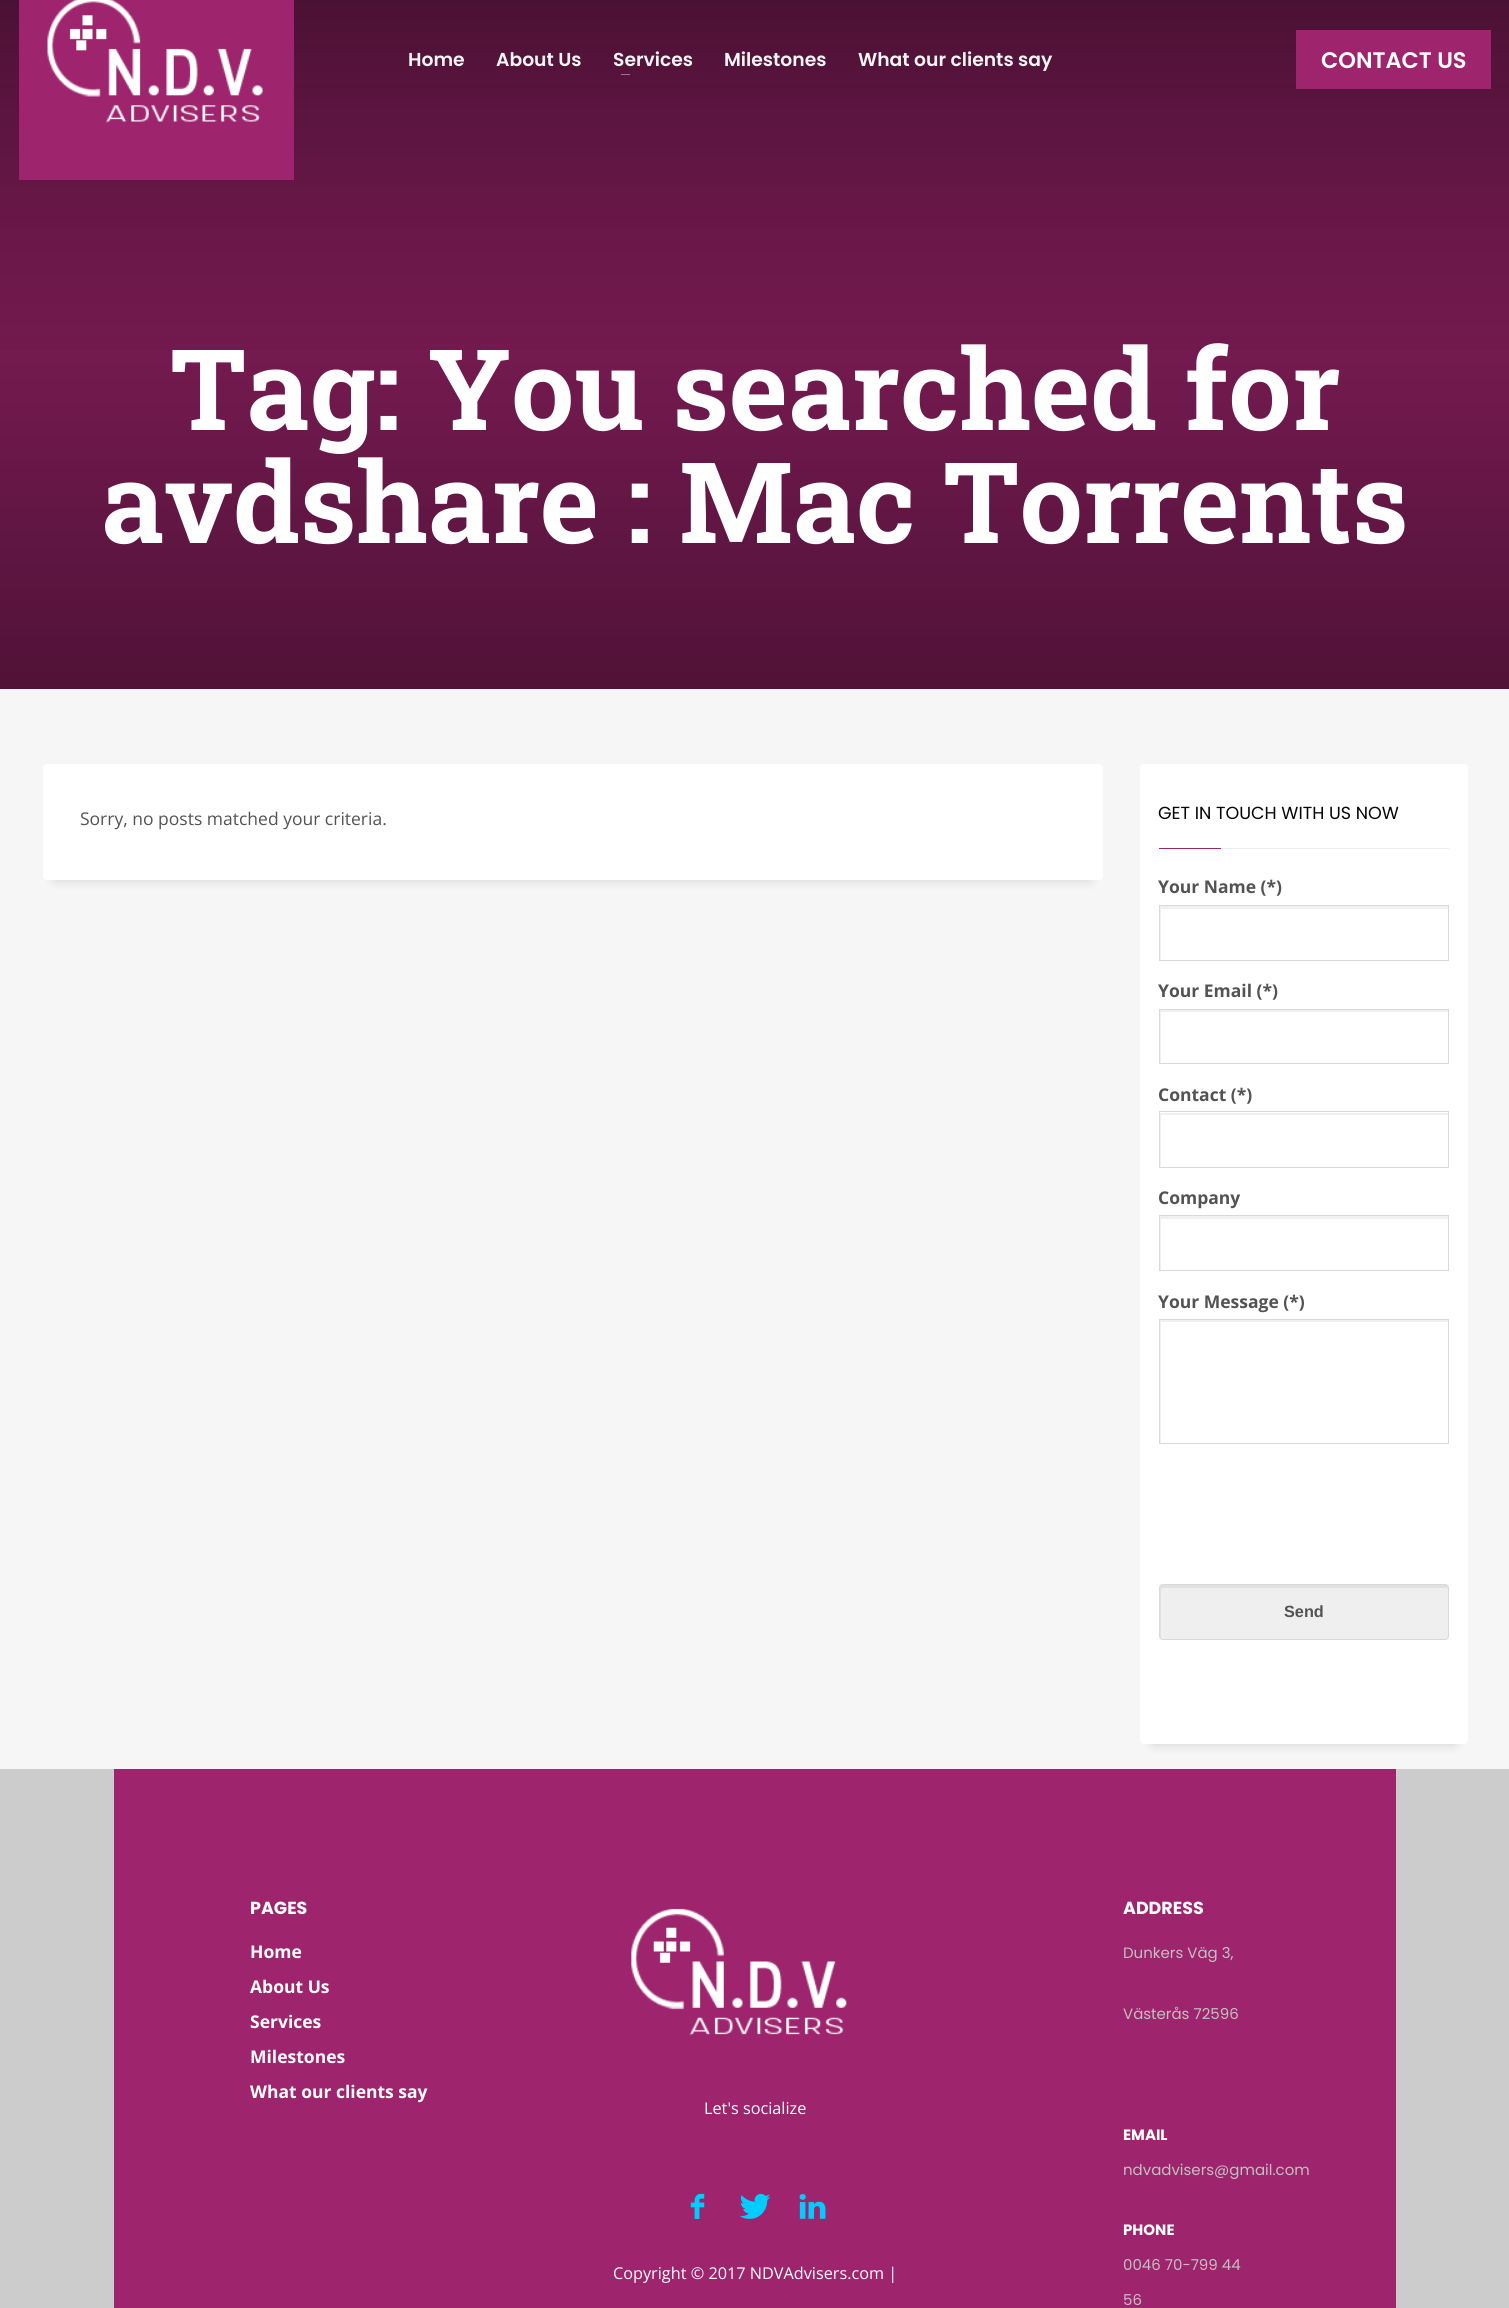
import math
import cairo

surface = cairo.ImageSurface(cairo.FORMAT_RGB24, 1509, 2308)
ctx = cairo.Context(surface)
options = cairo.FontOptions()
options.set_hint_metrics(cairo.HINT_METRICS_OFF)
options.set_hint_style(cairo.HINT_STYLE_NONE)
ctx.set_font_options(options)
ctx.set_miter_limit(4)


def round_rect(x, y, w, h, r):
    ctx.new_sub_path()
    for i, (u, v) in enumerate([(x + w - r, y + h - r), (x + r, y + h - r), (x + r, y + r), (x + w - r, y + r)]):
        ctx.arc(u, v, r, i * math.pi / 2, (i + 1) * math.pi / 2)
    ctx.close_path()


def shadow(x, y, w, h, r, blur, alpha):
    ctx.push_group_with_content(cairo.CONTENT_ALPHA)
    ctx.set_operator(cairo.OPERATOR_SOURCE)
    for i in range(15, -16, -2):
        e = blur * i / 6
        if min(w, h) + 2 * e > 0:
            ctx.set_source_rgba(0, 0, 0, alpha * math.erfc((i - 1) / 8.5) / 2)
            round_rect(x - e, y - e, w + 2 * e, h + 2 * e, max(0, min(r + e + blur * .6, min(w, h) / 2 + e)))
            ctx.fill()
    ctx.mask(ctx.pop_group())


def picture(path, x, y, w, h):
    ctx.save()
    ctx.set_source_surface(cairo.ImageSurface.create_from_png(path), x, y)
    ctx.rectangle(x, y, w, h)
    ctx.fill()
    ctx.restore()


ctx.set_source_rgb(0.961, 0.961, 0.961)
ctx.paint()
gradient = cairo.LinearGradient(755, -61, 755, 689)
gradient.add_color_stop_rgba(0, 0.627, 0.141, 0.431, 1)
gradient.add_color_stop_rgba(1, 0.314, 0.071, 0.216, 1)
ctx.set_source(gradient)
ctx.rectangle(0, 0, 1509, 689)
ctx.fill()
ctx.select_font_face("Roboto Slab", cairo.FONT_SLANT_NORMAL, cairo.FONT_WEIGHT_BOLD)
ctx.set_font_size(112.5)
ctx.set_source_rgb(1, 1, 1)
ctx.move_to(170, 430)
ctx.show_text("Tag: You searched for")
gradient = cairo.LinearGradient(755, -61, 755, 364)
gradient.add_color_stop_rgba(0, 0, 0, 0, 0.6)
gradient.add_color_stop_rgba(1, 0, 0, 0, 0)
ctx.set_source(gradient)
ctx.rectangle(0, 0, 1509, 349)
ctx.fill()
ctx.set_source_rgb(0.62, 0.141, 0.427)
ctx.rectangle(19, 0, 275, 180)
ctx.fill()
picture("img1.png", 47, 0, 216, 123)
ctx.select_font_face("Poppins SemiBold")
ctx.set_font_size(18.75)
ctx.set_source_rgb(0.961, 0.961, 0.961)
ctx.move_to(408, 66)
ctx.show_text("Home")
ctx.move_to(496, 66)
ctx.show_text("About Us")
ctx.move_to(613, 66)
ctx.show_text("Services")
ctx.set_source_rgb(0.604, 0.447, 0.541)
ctx.rectangle(621, 74, 9, 1)
ctx.fill()
ctx.set_source_rgb(0.961, 0.961, 0.961)
ctx.move_to(724, 66)
ctx.show_text("Milestones")
ctx.move_to(858, 66)
ctx.show_text("What our clients say")
ctx.set_source_rgb(0.62, 0.141, 0.427)
ctx.rectangle(1296, 30, 195, 59)
ctx.fill()
ctx.set_font_size(22.5)
ctx.set_source_rgb(1, 1, 1)
ctx.move_to(1321, 68)
ctx.show_text("CONTACT US")
ctx.select_font_face("Roboto Slab", cairo.FONT_SLANT_NORMAL, cairo.FONT_WEIGHT_BOLD)
ctx.set_font_size(112.5)
ctx.move_to(101, 543)
ctx.show_text("avdshare : Mac Torrents")
ctx.set_source_rgb(0, 0, 0)
shadow(55, 789, 1035, 91, 0, 6, 0.15)
ctx.set_source_rgb(1, 1, 1)
round_rect(43, 764, 1060, 116, 4)
ctx.fill()
ctx.select_font_face("Open Sans")
ctx.set_font_size(17.5)
ctx.set_source_rgb(0.325, 0.325, 0.325)
ctx.move_to(80, 825)
ctx.show_text("Sorry, no posts matched your criteria.")
ctx.set_source_rgb(0, 0, 0)
shadow(1153, 789, 302, 955, 0, 6, 0.15)
ctx.set_source_rgb(1, 1, 1)
round_rect(1140, 764, 328, 980, 4)
ctx.fill()
ctx.select_font_face("Poppins")
ctx.set_source_rgb(0.02, 0.02, 0.02)
ctx.move_to(1158, 819)
ctx.show_text("GET IN TOUCH WITH US NOW")
ctx.set_source_rgb(0.62, 0.141, 0.427)
ctx.rectangle(1159, 848, 62, 1)
ctx.fill()
ctx.set_source_rgb(0.925, 0.925, 0.925)
ctx.rectangle(1221, 848, 228, 1)
ctx.fill()
ctx.select_font_face("Open Sans", cairo.FONT_SLANT_NORMAL, cairo.FONT_WEIGHT_BOLD)
ctx.set_source_rgb(0.325, 0.325, 0.325)
ctx.move_to(1158, 893)
ctx.show_text("Your Name (*)")
ctx.save()
ctx.rectangle(1160, 906, 288, 54)
ctx.clip()
ctx.set_source_rgb(0.941, 0.941, 0.941)
ctx.set_fill_rule(cairo.FILL_RULE_EVEN_ODD)
ctx.new_path()
ctx.move_to(1036, 782)
ctx.line_to(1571, 782)
ctx.line_to(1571, 1084)
ctx.line_to(1036, 1084)
ctx.close_path()
ctx.move_to(1161, 909)
ctx.line_to(1449, 909)
ctx.line_to(1449, 962)
ctx.line_to(1161, 962)
ctx.close_path()
ctx.fill()
ctx.restore()
ctx.rectangle(1159.5, 905.5, 289, 55)
ctx.set_source_rgb(0.851, 0.851, 0.851)
ctx.set_line_width(1)
ctx.stroke()
ctx.set_source_rgb(0.325, 0.325, 0.325)
ctx.move_to(1158, 997)
ctx.show_text("Your Email (*)")
ctx.save()
ctx.rectangle(1160, 1010, 288, 53)
ctx.clip()
ctx.set_source_rgb(0.941, 0.941, 0.941)
ctx.set_fill_rule(cairo.FILL_RULE_EVEN_ODD)
ctx.new_path()
ctx.move_to(1036, 886)
ctx.line_to(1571, 886)
ctx.line_to(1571, 1186)
ctx.line_to(1036, 1186)
ctx.close_path()
ctx.move_to(1161, 1012)
ctx.line_to(1449, 1012)
ctx.line_to(1449, 1065)
ctx.line_to(1161, 1065)
ctx.close_path()
ctx.fill()
ctx.restore()
ctx.rectangle(1159.5, 1009.5, 289, 54)
ctx.set_source_rgb(0.851, 0.851, 0.851)
ctx.stroke()
ctx.set_source_rgb(0.325, 0.325, 0.325)
ctx.move_to(1158, 1101)
ctx.show_text("Contact (*)")
ctx.save()
ctx.rectangle(1160, 1113, 288, 53)
ctx.clip()
ctx.set_source_rgb(0.941, 0.941, 0.941)
ctx.set_fill_rule(cairo.FILL_RULE_EVEN_ODD)
ctx.new_path()
ctx.move_to(1036, 989)
ctx.line_to(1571, 989)
ctx.line_to(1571, 1290)
ctx.line_to(1036, 1290)
ctx.close_path()
ctx.move_to(1161, 1115)
ctx.line_to(1449, 1115)
ctx.line_to(1449, 1169)
ctx.line_to(1161, 1169)
ctx.close_path()
ctx.fill()
ctx.restore()
ctx.rectangle(1159.5, 1111.5, 289, 56)
ctx.set_source_rgb(0.851, 0.851, 0.851)
ctx.stroke()
ctx.set_source_rgb(0.325, 0.325, 0.325)
ctx.move_to(1158, 1204)
ctx.show_text("Company")
ctx.save()
ctx.rectangle(1160, 1216, 288, 54)
ctx.clip()
ctx.set_source_rgb(0.941, 0.941, 0.941)
ctx.set_fill_rule(cairo.FILL_RULE_EVEN_ODD)
ctx.new_path()
ctx.move_to(1036, 1092)
ctx.line_to(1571, 1092)
ctx.line_to(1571, 1394)
ctx.line_to(1036, 1394)
ctx.close_path()
ctx.move_to(1161, 1219)
ctx.line_to(1449, 1219)
ctx.line_to(1449, 1272)
ctx.line_to(1161, 1272)
ctx.close_path()
ctx.fill()
ctx.restore()
ctx.rectangle(1159.5, 1215.5, 289, 55)
ctx.set_source_rgb(0.851, 0.851, 0.851)
ctx.stroke()
ctx.set_source_rgb(0.325, 0.325, 0.325)
ctx.move_to(1158, 1308)
ctx.show_text("Your Message (*)")
ctx.save()
ctx.rectangle(1160, 1320, 288, 123)
ctx.clip()
ctx.set_source_rgb(0.941, 0.941, 0.941)
ctx.set_fill_rule(cairo.FILL_RULE_EVEN_ODD)
ctx.new_path()
ctx.move_to(1036, 1196)
ctx.line_to(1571, 1196)
ctx.line_to(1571, 1566)
ctx.line_to(1036, 1566)
ctx.close_path()
ctx.move_to(1161, 1322)
ctx.line_to(1449, 1322)
ctx.line_to(1449, 1445)
ctx.line_to(1161, 1445)
ctx.close_path()
ctx.fill()
ctx.restore()
ctx.rectangle(1159.5, 1319.5, 289, 124)
ctx.set_source_rgb(0.851, 0.851, 0.851)
ctx.stroke()
ctx.set_source_rgb(0.937, 0.937, 0.937)
round_rect(1159, 1584, 290, 56, 4)
ctx.fill()
ctx.set_source_rgb(0.882, 0.882, 0.882)
ctx.new_path()
ctx.move_to(1164, 1588)
ctx.line_to(1446, 1588)
ctx.line_to(1448, 1588)
ctx.curve_to(1448, 1586, 1447, 1585, 1446, 1585)
ctx.line_to(1162, 1585)
ctx.curve_to(1161, 1585, 1160, 1586, 1160, 1588)
ctx.line_to(1160, 1636)
ctx.curve_to(1160, 1637, 1160, 1638, 1161, 1639)
ctx.line_to(1161, 1590)
ctx.curve_to(1161, 1589, 1162, 1588, 1164, 1588)
ctx.close_path()
ctx.fill()
round_rect(1159.5, 1584.5, 289, 55, 3.5)
ctx.set_source_rgb(0.851, 0.851, 0.851)
ctx.stroke()
ctx.select_font_face("Liberation Sans", cairo.FONT_SLANT_NORMAL, cairo.FONT_WEIGHT_BOLD)
ctx.set_font_size(16.25)
ctx.set_source_rgb(0.325, 0.325, 0.325)
ctx.move_to(1284, 1617)
ctx.show_text("Send")
ctx.set_source_rgb(0.8, 0.8, 0.8)
ctx.rectangle(0, 1769, 1509, 539)
ctx.fill()
ctx.set_source_rgb(0.62, 0.141, 0.427)
ctx.rectangle(114, 1769, 1282, 539)
ctx.fill()
ctx.select_font_face("Poppins", cairo.FONT_SLANT_NORMAL, cairo.FONT_WEIGHT_BOLD)
ctx.set_font_size(17.5)
ctx.set_source_rgb(1, 1, 1)
ctx.move_to(250, 1914)
ctx.show_text("PAGES")
ctx.select_font_face("Open Sans", cairo.FONT_SLANT_NORMAL, cairo.FONT_WEIGHT_BOLD)
ctx.move_to(250, 1958)
ctx.show_text("Home")
ctx.move_to(250, 1993)
ctx.show_text("About Us")
ctx.move_to(250, 2028)
ctx.show_text("Services")
ctx.move_to(250, 2063)
ctx.show_text("Milestones")
ctx.move_to(250, 2098)
ctx.show_text("What our clients say")
picture("img2.png", 631, 1908, 216, 128)
ctx.select_font_face("Open Sans")
ctx.set_font_size(16.25)
ctx.move_to(704, 2114)
ctx.show_text("Let's socialize")
picture("img3.png", 690, 2193, 15, 26)
picture("img4.png", 739, 2193, 32, 26)
picture("img5.png", 799, 2194, 27, 25)
ctx.move_to(613, 2279)
ctx.show_text("Copyright © 2017 NDVAdvisers.com |")
ctx.select_font_face("Poppins", cairo.FONT_SLANT_NORMAL, cairo.FONT_WEIGHT_BOLD)
ctx.set_font_size(17.5)
ctx.move_to(1123, 1914)
ctx.show_text("ADDRESS")
ctx.select_font_face("Poppins")
ctx.set_font_size(15)
ctx.set_source_rgb(0.757, 0.757, 0.757)
ctx.move_to(1123, 1958)
ctx.show_text("Dunkers Väg 3,")
ctx.move_to(1123, 2019)
ctx.show_text("Västerås 72596")
ctx.select_font_face("Poppins", cairo.FONT_SLANT_NORMAL, cairo.FONT_WEIGHT_BOLD)
ctx.set_source_rgb(1, 1, 1)
ctx.move_to(1123, 2140)
ctx.show_text("EMAIL")
ctx.select_font_face("Poppins")
ctx.set_source_rgb(0.757, 0.757, 0.757)
ctx.move_to(1123, 2175)
ctx.show_text("ndvadvisers@gmail.com")
ctx.select_font_face("Poppins", cairo.FONT_SLANT_NORMAL, cairo.FONT_WEIGHT_BOLD)
ctx.set_source_rgb(1, 1, 1)
ctx.move_to(1123, 2235)
ctx.show_text("PHONE")
ctx.select_font_face("Poppins")
ctx.set_source_rgb(0.757, 0.757, 0.757)
ctx.move_to(1123, 2270)
ctx.show_text("0046 70-799 44")
ctx.move_to(1123, 2305)
ctx.show_text("56")
surface.write_to_png("page.png")
